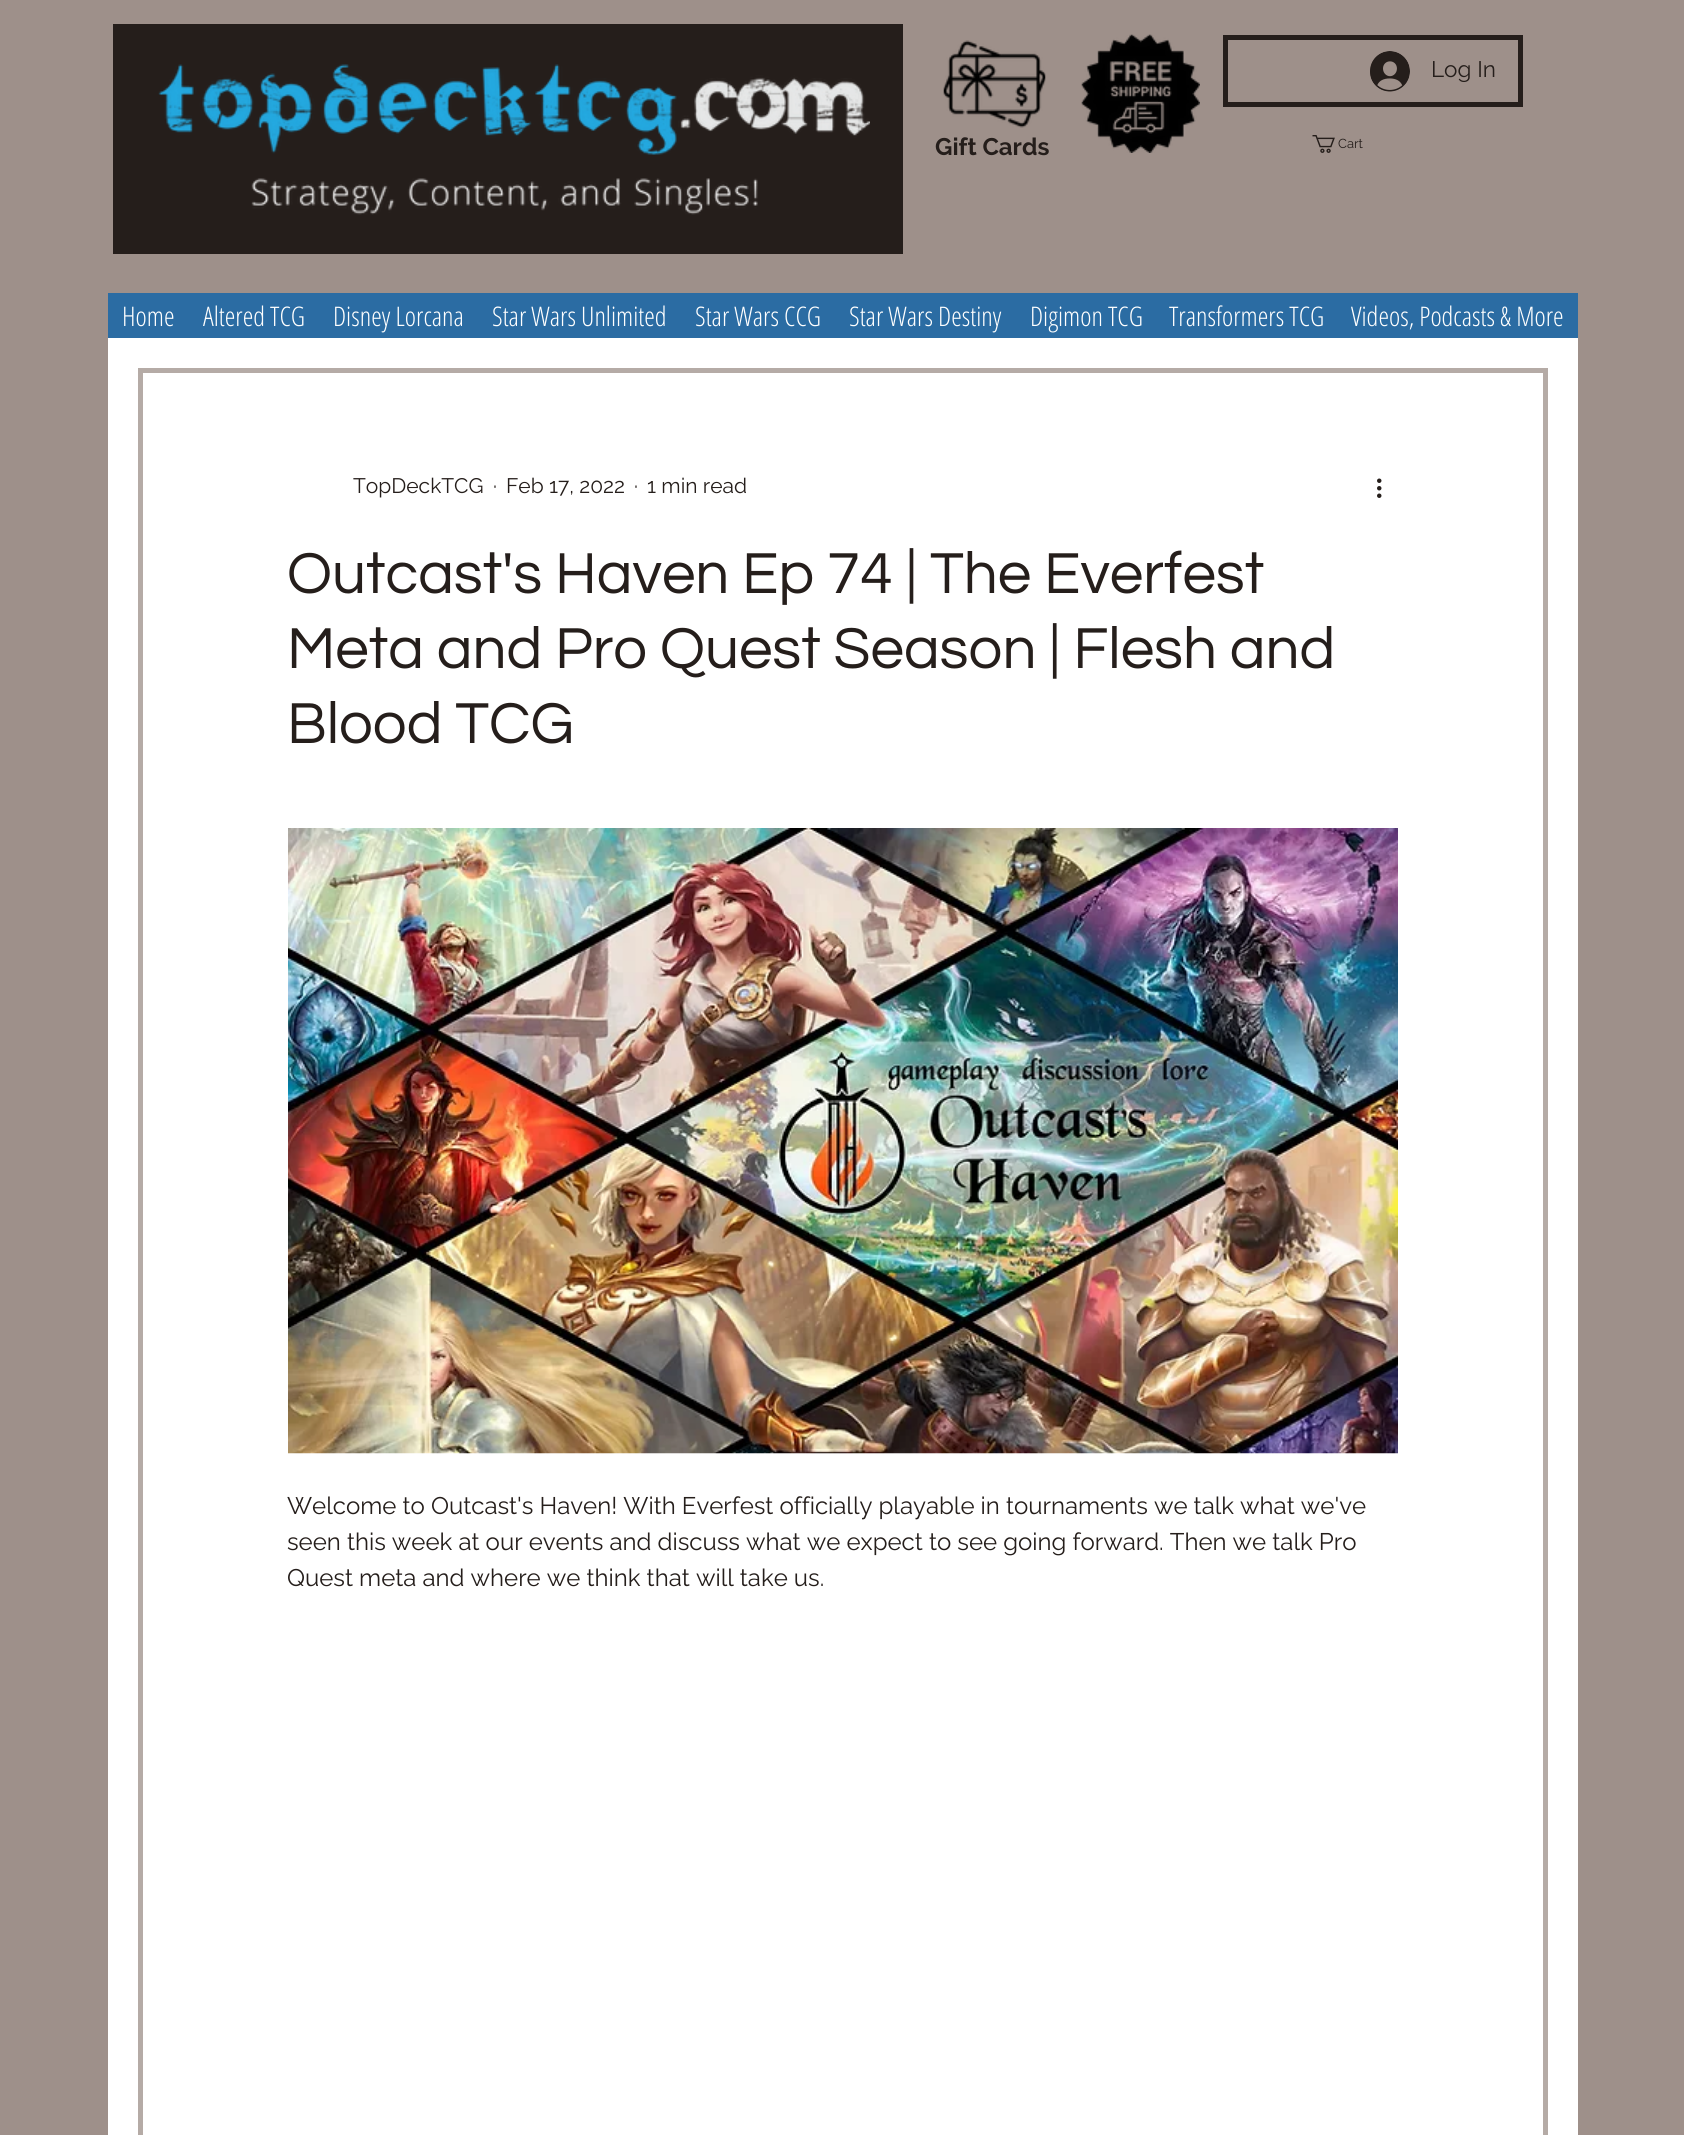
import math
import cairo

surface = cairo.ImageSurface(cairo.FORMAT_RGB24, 1684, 2135)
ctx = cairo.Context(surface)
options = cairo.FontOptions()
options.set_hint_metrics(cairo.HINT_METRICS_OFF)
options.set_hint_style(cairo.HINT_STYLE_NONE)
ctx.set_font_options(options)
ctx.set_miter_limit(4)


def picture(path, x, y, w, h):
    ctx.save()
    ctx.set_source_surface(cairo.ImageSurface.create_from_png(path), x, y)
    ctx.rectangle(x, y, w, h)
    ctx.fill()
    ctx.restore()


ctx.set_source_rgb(0.62, 0.565, 0.541)
ctx.paint()
ctx.set_source_rgb(0.145, 0.118, 0.106)
ctx.rectangle(113, 24, 790, 230)
ctx.fill()
picture("img1.png", 158, 64, 712, 91)
picture("img2.png", 251, 178, 507, 37)
picture("img3.png", 943, 40, 103, 88)
picture("img4.png", 1081, 34, 119, 119)
ctx.rectangle(1225.5, 37.5, 295, 67)
ctx.set_line_width(5)
ctx.stroke()
picture("img5.png", 1370, 51, 40, 41)
ctx.select_font_face("Raleway")
ctx.set_font_size(22.5)
ctx.move_to(1431, 77)
ctx.show_text("Log In")
ctx.select_font_face("Raleway", cairo.FONT_SLANT_NORMAL, cairo.FONT_WEIGHT_BOLD)
ctx.set_font_size(24)
ctx.move_to(935, 155)
ctx.show_text("Gift Cards")
picture("img6.png", 1312, 135, 23, 18)
ctx.select_font_face("Raleway")
ctx.set_font_size(13)
ctx.move_to(1338, 148)
ctx.show_text("Cart")
ctx.set_source_rgb(0.169, 0.424, 0.639)
ctx.rectangle(108, 293, 1470, 45)
ctx.fill()
ctx.select_font_face("Open Sans Condensed Light")
ctx.set_font_size(27)
ctx.set_source_rgb(1, 1, 1)
ctx.move_to(122, 326)
ctx.show_text("Home")
ctx.move_to(203, 326)
ctx.show_text("Altered TCG")
ctx.move_to(333, 326)
ctx.show_text("Disney Lorcana")
ctx.move_to(492, 326)
ctx.show_text("Star Wars Unlimited")
ctx.move_to(695, 326)
ctx.show_text("Star Wars CCG")
ctx.move_to(849, 326)
ctx.show_text("Star Wars Destiny")
ctx.move_to(1030, 326)
ctx.show_text("Digimon TCG")
ctx.move_to(1169, 326)
ctx.show_text("Transformers TCG")
ctx.move_to(1351, 326)
ctx.show_text("Videos, Podcasts & More")
ctx.rectangle(108, 338, 1470, 1797)
ctx.fill()
ctx.rectangle(140.5, 370.5, 1405, 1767)
ctx.set_source_rgb(0.71, 0.671, 0.651)
ctx.stroke()
ctx.select_font_face("Raleway")
ctx.set_font_size(21)
ctx.set_source_rgb(0.145, 0.118, 0.106)
ctx.move_to(353, 493)
ctx.show_text("TopDeckTCG")
ctx.move_to(493, 493)
ctx.show_text("·")
ctx.move_to(506, 493)
ctx.show_text("Feb 17, 2022")
ctx.move_to(634, 493)
ctx.show_text("·")
ctx.move_to(647, 493)
ctx.show_text("1 min read")
picture("img7.png", 1377, 478, 5, 20)
ctx.select_font_face("Questrial")
ctx.set_font_size(60)
ctx.move_to(287, 593)
ctx.show_text("Outcast's Haven Ep 74 | The Everfest")
ctx.move_to(287, 668)
ctx.show_text("Meta and Pro Quest Season | Flesh and")
ctx.move_to(287, 743)
ctx.show_text("Blood TCG")
picture("img8.png", 288, 828, 1110, 626)
ctx.select_font_face("Raleway")
ctx.set_font_size(24)
ctx.move_to(287, 1514)
ctx.show_text("Welcome to Outcast's Haven! With Everfest officially playable in tournaments we talk what we've")
ctx.move_to(287, 1550)
ctx.show_text("seen this week at our events and discuss what we expect to see going forward. Then we talk Pro")
ctx.move_to(287, 1586)
ctx.show_text("Quest meta and where we think that will take us.")
surface.write_to_png("page.png")
